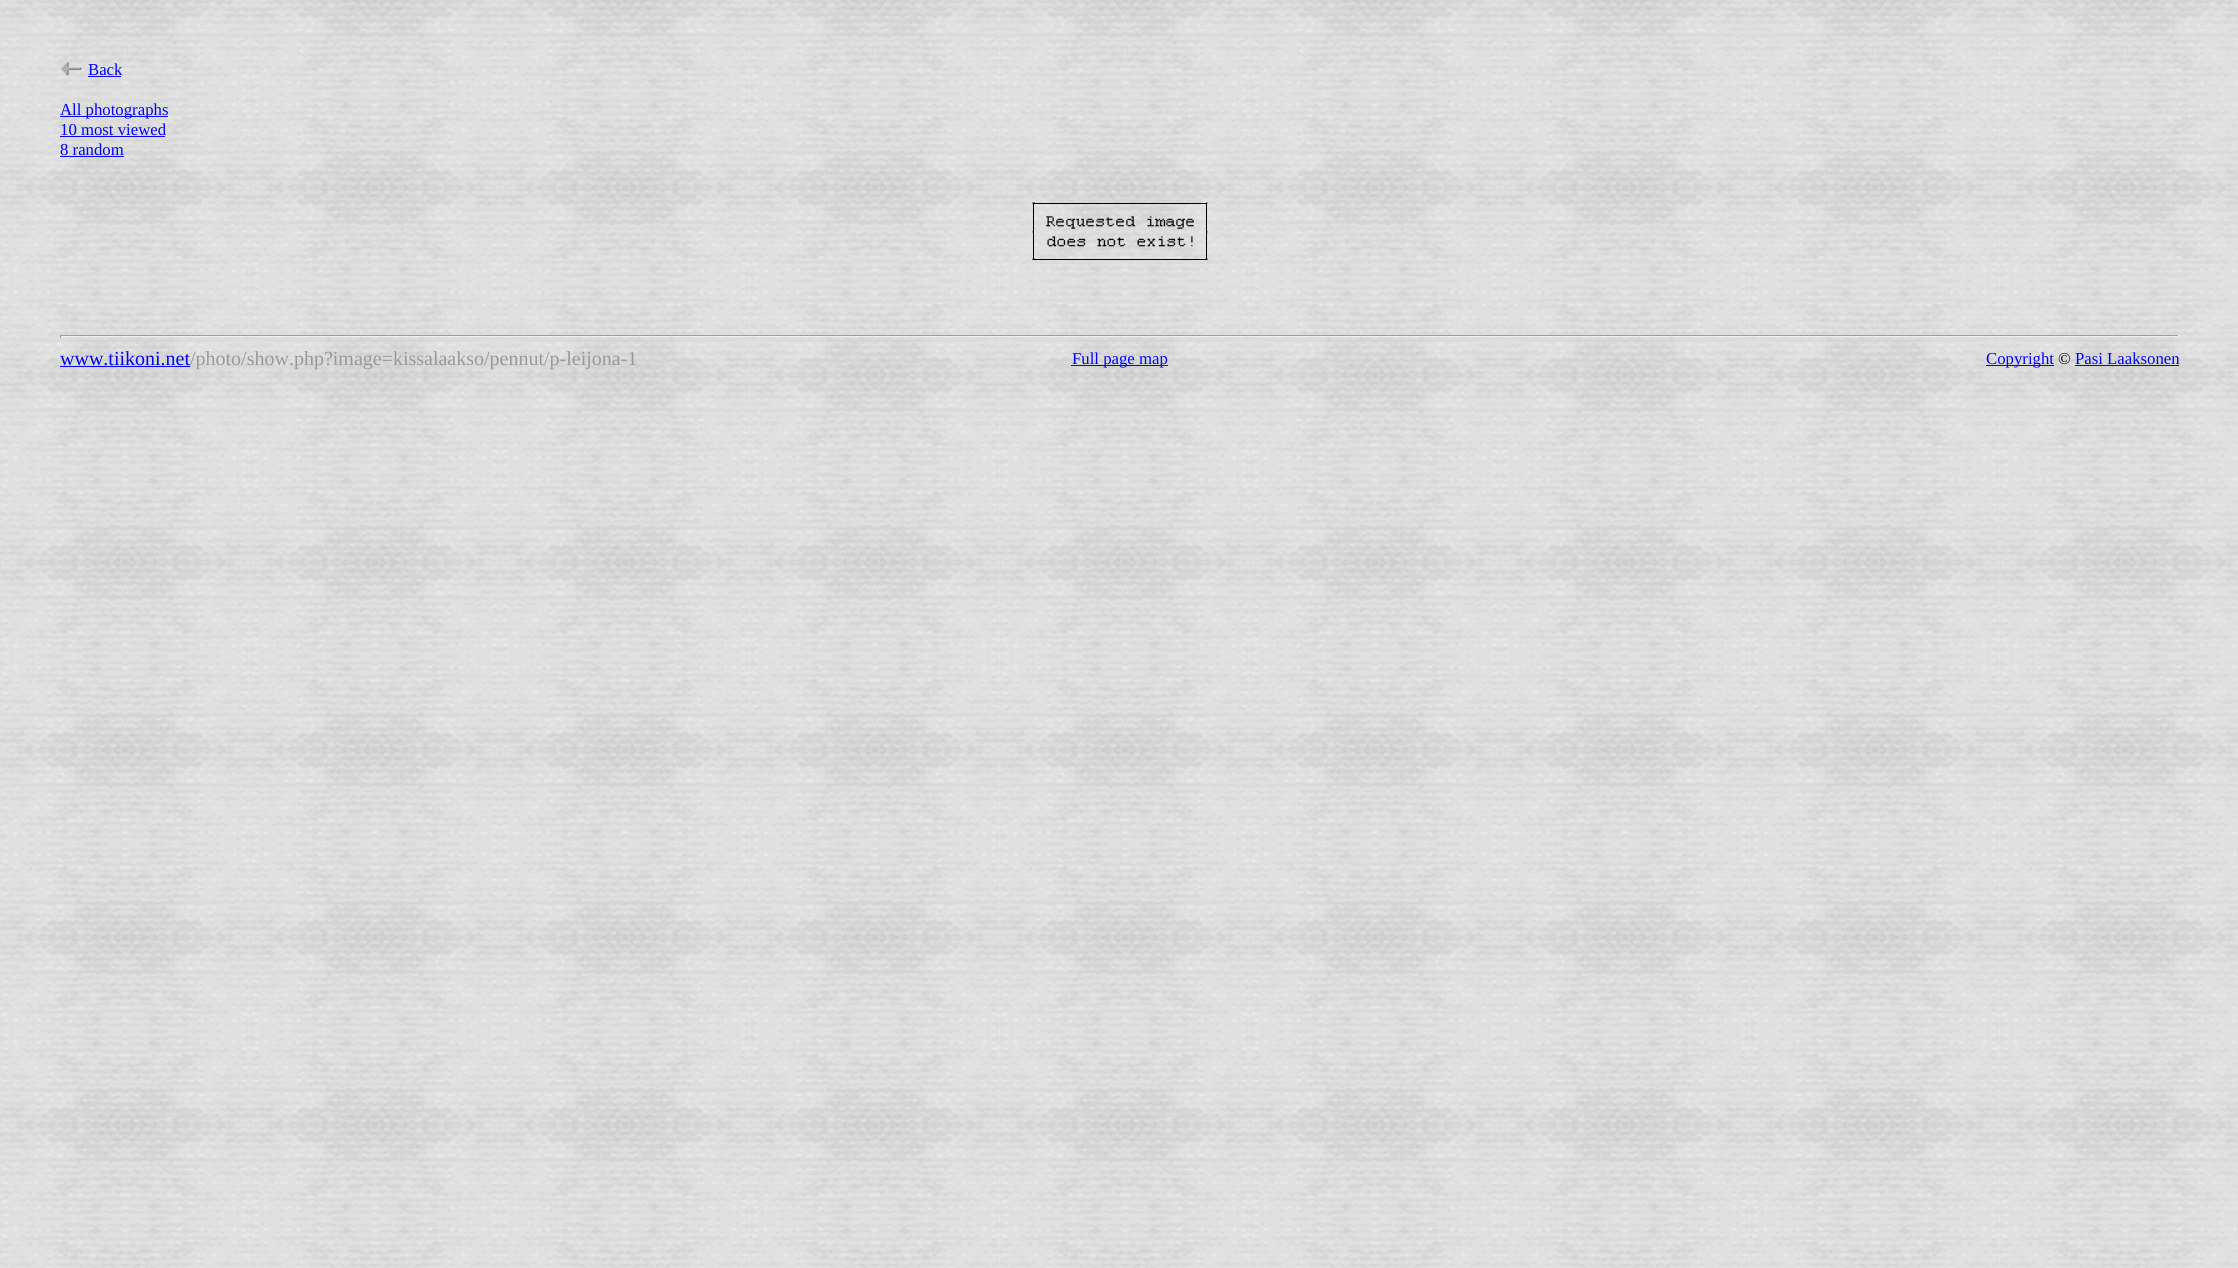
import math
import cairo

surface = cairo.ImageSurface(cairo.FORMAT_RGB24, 2238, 1268)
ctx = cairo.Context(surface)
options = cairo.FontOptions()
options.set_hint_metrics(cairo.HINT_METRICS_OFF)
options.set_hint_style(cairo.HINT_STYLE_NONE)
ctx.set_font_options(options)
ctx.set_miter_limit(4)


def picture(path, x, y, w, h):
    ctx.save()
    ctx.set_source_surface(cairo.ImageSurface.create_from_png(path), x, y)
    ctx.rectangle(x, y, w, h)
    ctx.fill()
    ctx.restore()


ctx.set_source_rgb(1, 1, 1)
ctx.paint()
picture("img1.png", 0, 0, 2238, 1268)
picture("img2.png", 60, 61, 22, 14)
ctx.select_font_face("Liberation Serif")
ctx.set_font_size(16.75)
ctx.set_source_rgb(0, 0, 1)
ctx.move_to(88, 75)
ctx.show_text("Back")
ctx.rectangle(88, 76, 33, 1)
ctx.fill()
ctx.rectangle(60, 116, 108, 1)
ctx.fill()
ctx.move_to(60, 115)
ctx.show_text("All photographs")
ctx.move_to(60, 135)
ctx.show_text("10 most viewed")
ctx.rectangle(60, 136, 105, 1)
ctx.fill()
ctx.move_to(60, 155)
ctx.show_text("8 random")
ctx.rectangle(60, 156, 64, 1)
ctx.fill()
ctx.set_source_rgb(0, 0, 0)
ctx.rectangle(1033, 203, 174, 1)
ctx.fill()
picture("img3.png", 1032, 202, 2, 2)
picture("img4.png", 1033, 202, 2, 1)
picture("img5.png", 1206, 202, 2, 2)
ctx.rectangle(1033, 204, 1, 56)
ctx.fill()
picture("img6.png", 1032, 231, 1, 2)
picture("img7.png", 1046, 216, 148, 31)
ctx.rectangle(1206, 204, 1, 55)
ctx.fill()
picture("img6.png", 1207, 231, 1, 2)
picture("img8.png", 1032, 258, 1, 2)
ctx.rectangle(1034, 259, 173, 1)
ctx.fill()
ctx.set_source_rgb(0.659, 0.659, 0.659)
ctx.rectangle(1034, 258, 1, 1)
ctx.fill()
picture("img9.png", 1207, 258, 1, 2)
ctx.set_source_rgb(0.624, 0.624, 0.624)
ctx.rectangle(60, 335, 2119, 1)
ctx.fill()
ctx.set_source_rgb(0.933, 0.933, 0.933)
ctx.rectangle(2178, 335, 1, 3)
ctx.fill()
ctx.rectangle(60, 336, 2119, 1)
ctx.fill()
ctx.set_source_rgb(0.624, 0.624, 0.624)
ctx.rectangle(60, 335, 1, 3)
ctx.fill()
ctx.set_font_size(20)
ctx.set_source_rgb(0, 0, 1)
ctx.move_to(60, 365)
ctx.show_text("www.tiikoni.net")
ctx.rectangle(60, 366, 130, 1)
ctx.fill()
ctx.set_source_rgb(0.6, 0.6, 0.6)
ctx.move_to(190, 365)
ctx.show_text("/photo/show.php?image=kissalaakso/pennut/p-leijona-1")
ctx.set_source_rgb(0, 0, 1)
ctx.rectangle(1071, 365, 97, 1)
ctx.fill()
ctx.set_font_size(16.75)
ctx.move_to(1072, 364)
ctx.show_text("Full page map")
ctx.rectangle(1986, 365, 68, 1)
ctx.fill()
ctx.move_to(1986, 364)
ctx.show_text("Copyright")
ctx.set_source_rgb(0, 0, 0)
ctx.move_to(2058, 364)
ctx.show_text("©")
ctx.set_source_rgb(0, 0, 1)
ctx.move_to(2075, 364)
ctx.show_text("Pasi Laaksonen")
ctx.rectangle(2075, 365, 104, 1)
ctx.fill()
surface.write_to_png("page.png")
